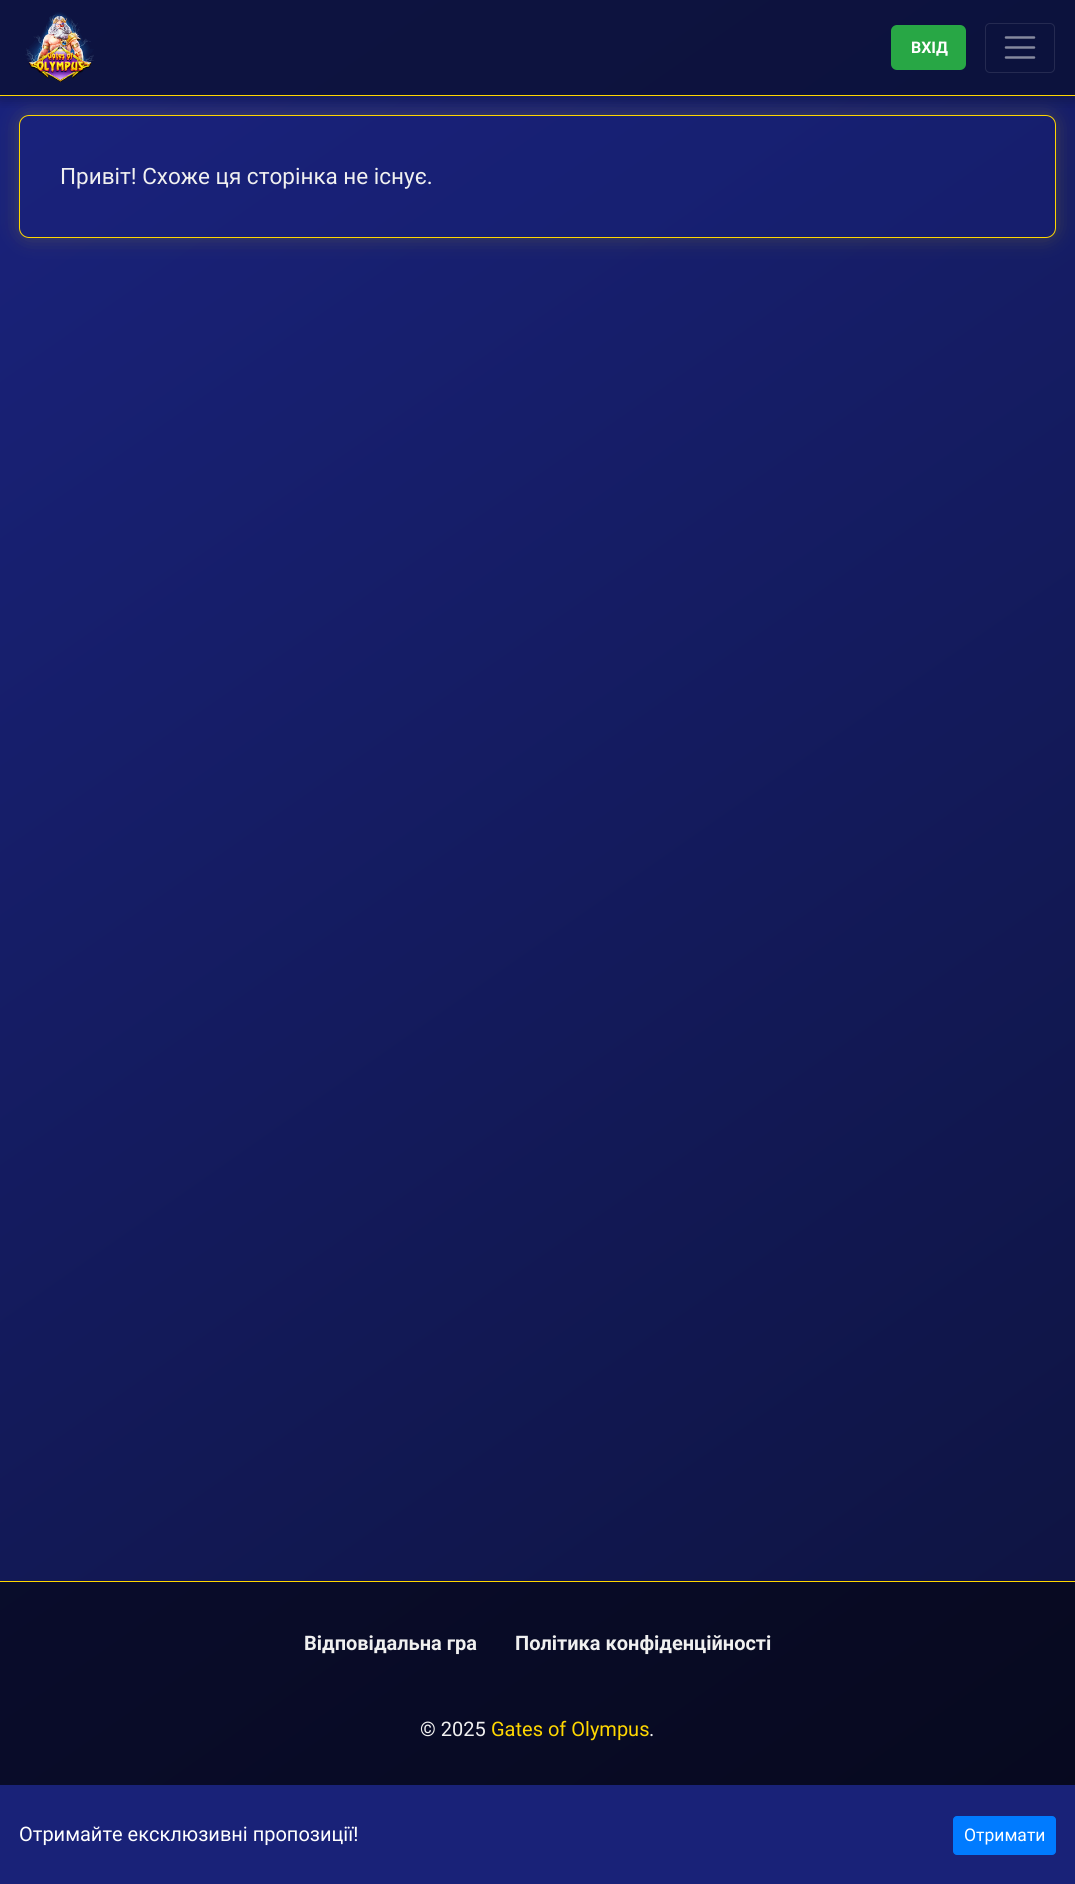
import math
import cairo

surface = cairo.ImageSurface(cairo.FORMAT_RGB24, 1075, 1884)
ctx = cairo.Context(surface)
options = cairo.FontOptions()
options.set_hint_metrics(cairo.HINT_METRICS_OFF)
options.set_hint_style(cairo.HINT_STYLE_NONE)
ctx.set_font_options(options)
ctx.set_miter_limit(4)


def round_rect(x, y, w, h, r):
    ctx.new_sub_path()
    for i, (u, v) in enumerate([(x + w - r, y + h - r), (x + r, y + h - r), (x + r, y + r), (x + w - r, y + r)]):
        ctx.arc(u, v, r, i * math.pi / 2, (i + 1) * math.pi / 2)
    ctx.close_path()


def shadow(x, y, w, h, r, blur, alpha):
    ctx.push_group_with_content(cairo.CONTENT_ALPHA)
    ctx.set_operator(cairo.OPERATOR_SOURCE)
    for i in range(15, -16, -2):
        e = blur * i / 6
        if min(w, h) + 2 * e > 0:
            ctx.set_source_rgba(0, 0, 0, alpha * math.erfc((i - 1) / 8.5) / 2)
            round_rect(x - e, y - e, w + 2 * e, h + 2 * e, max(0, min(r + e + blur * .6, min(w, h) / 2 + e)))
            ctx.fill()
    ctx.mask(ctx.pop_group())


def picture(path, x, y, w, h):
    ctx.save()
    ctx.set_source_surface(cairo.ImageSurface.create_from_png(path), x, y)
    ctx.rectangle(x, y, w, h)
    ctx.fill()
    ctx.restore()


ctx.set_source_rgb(1, 1, 1)
ctx.paint()
gradient = cairo.LinearGradient(-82, 58, 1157, 1827)
gradient.add_color_stop_rgba(0, 0.102, 0.137, 0.494, 1)
gradient.add_color_stop_rgba(1, 0.051, 0.071, 0.231, 1)
ctx.set_source(gradient)
ctx.rectangle(0, 96, 1075, 1485)
ctx.fill()
gradient = cairo.LinearGradient(-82, 58, 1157, 1827)
gradient.add_color_stop_rgba(0, 0.051, 0.075, 0.255, 1)
gradient.add_color_stop_rgba(1, 0.043, 0.063, 0.204, 1)
ctx.set_source(gradient)
ctx.rectangle(0, 0, 1075, 95)
ctx.fill()
gradient = cairo.LinearGradient(-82, 58, 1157, 1827)
gradient.add_color_stop_rgba(0, 0.051, 0.071, 0.247, 1)
gradient.add_color_stop_rgba(1, 0.027, 0.035, 0.118, 1)
ctx.set_source(gradient)
ctx.rectangle(0, 1582, 1075, 203)
ctx.fill()
ctx.save()
ctx.rectangle(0, 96, 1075, 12)
ctx.clip()
ctx.set_source_rgb(0, 0, 0)
shadow(0, 3, 1075, 96, 0, 6, 0.3)
ctx.restore()
ctx.set_source_rgb(1, 0.843, 0)
ctx.rectangle(0, 95, 1075, 1)
ctx.fill()
picture("img1.png", 25, 12, 69, 71)
ctx.set_source_rgb(0.157, 0.655, 0.271)
round_rect(891, 25, 75, 45, 6)
ctx.fill()
ctx.select_font_face("Roboto", cairo.FONT_SLANT_NORMAL, cairo.FONT_WEIGHT_BOLD)
ctx.set_font_size(16)
ctx.set_source_rgb(1, 1, 1)
ctx.move_to(911, 53)
ctx.show_text("ВХІД")
round_rect(985.5, 23.5, 69, 49, 4.5)
ctx.set_source_rgb(0.145, 0.165, 0.318)
ctx.set_line_width(1)
ctx.stroke()
ctx.new_path()
ctx.move_to(1006, 37.5)
ctx.line_to(1034, 37.5)
ctx.move_to(1006, 47.5)
ctx.line_to(1034, 47.5)
ctx.move_to(1006, 57.5)
ctx.line_to(1034, 57.5)
ctx.set_source_rgb(0.525, 0.537, 0.62)
ctx.set_line_width(2.5)
ctx.set_line_cap(cairo.LINE_CAP_ROUND)
ctx.stroke()
ctx.save()
ctx.set_fill_rule(cairo.FILL_RULE_EVEN_ODD)
ctx.new_path()
ctx.move_to(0, 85)
ctx.line_to(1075, 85)
ctx.line_to(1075, 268)
ctx.line_to(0, 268)
ctx.close_path()
ctx.move_to(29, 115)
ctx.line_to(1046, 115)
ctx.curve_to(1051.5, 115, 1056, 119.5, 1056, 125)
ctx.line_to(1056, 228)
ctx.curve_to(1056, 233.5, 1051.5, 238, 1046, 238)
ctx.line_to(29, 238)
ctx.curve_to(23.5, 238, 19, 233.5, 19, 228)
ctx.line_to(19, 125)
ctx.curve_to(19, 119.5, 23.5, 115, 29, 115)
ctx.close_path()
ctx.clip()
ctx.set_source_rgb(1, 0.843, 0)
shadow(19, 115, 1037, 123, 10, 9.5, 0.2)
ctx.restore()
ctx.set_source_rgba(0.102, 0.137, 0.494, 0.3)
round_rect(19.5, 115.5, 1036, 122, 9.5)
ctx.fill_preserve()
ctx.set_source_rgb(1, 0.843, 0)
ctx.set_line_width(1)
ctx.set_line_cap(cairo.LINE_CAP_BUTT)
ctx.stroke()
ctx.select_font_face("Roboto")
ctx.set_font_size(22.5)
ctx.set_source_rgb(0.941, 0.941, 0.941)
ctx.move_to(60, 184)
ctx.show_text("Привіт! Схоже ця сторінка не існує.")
ctx.set_source_rgb(1, 0.843, 0)
ctx.rectangle(0, 1581, 1075, 1)
ctx.fill()
ctx.select_font_face("Roboto", cairo.FONT_SLANT_NORMAL, cairo.FONT_WEIGHT_BOLD)
ctx.set_font_size(20)
ctx.set_source_rgb(0.941, 0.941, 0.941)
ctx.move_to(304, 1650)
ctx.show_text("Відповідальна гра")
ctx.move_to(515, 1650)
ctx.show_text("Політика конфіденційності")
ctx.select_font_face("Roboto")
ctx.move_to(420, 1736)
ctx.show_text("© 2025")
ctx.set_source_rgb(1, 0.843, 0)
ctx.move_to(491, 1736)
ctx.show_text("Gates of Olympus")
ctx.set_source_rgb(0.941, 0.941, 0.941)
ctx.move_to(649, 1736)
ctx.show_text(".")
ctx.set_source_rgb(0.098, 0.133, 0.471)
ctx.rectangle(0, 1785, 1075, 99)
ctx.fill()
ctx.set_source_rgb(1, 1, 1)
ctx.move_to(19, 1841)
ctx.show_text("Отримайте ексклюзивні пропозиції!")
ctx.set_source_rgb(0, 0.482, 1)
round_rect(953.5, 1816.5, 102, 38, 3.5)
ctx.fill_preserve()
ctx.stroke()
ctx.set_font_size(17.5)
ctx.set_source_rgb(1, 1, 1)
ctx.move_to(964, 1841)
ctx.show_text("Отримати")
surface.write_to_png("page.png")
